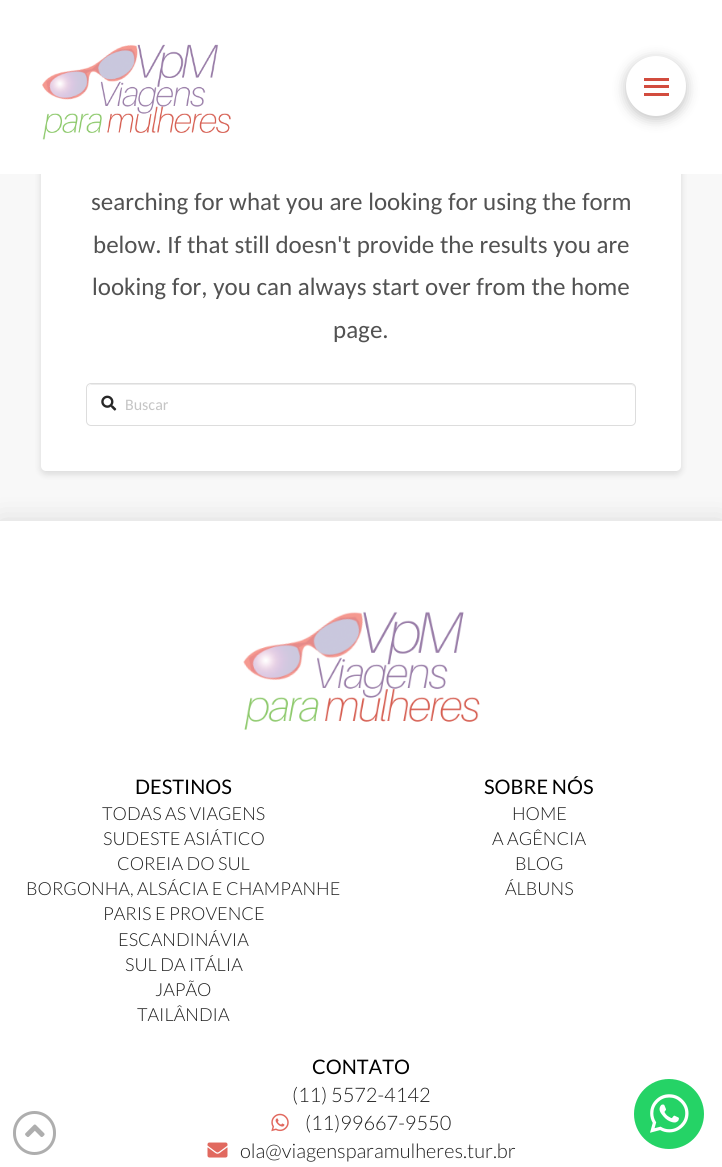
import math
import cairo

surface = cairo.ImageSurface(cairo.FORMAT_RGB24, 722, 1167)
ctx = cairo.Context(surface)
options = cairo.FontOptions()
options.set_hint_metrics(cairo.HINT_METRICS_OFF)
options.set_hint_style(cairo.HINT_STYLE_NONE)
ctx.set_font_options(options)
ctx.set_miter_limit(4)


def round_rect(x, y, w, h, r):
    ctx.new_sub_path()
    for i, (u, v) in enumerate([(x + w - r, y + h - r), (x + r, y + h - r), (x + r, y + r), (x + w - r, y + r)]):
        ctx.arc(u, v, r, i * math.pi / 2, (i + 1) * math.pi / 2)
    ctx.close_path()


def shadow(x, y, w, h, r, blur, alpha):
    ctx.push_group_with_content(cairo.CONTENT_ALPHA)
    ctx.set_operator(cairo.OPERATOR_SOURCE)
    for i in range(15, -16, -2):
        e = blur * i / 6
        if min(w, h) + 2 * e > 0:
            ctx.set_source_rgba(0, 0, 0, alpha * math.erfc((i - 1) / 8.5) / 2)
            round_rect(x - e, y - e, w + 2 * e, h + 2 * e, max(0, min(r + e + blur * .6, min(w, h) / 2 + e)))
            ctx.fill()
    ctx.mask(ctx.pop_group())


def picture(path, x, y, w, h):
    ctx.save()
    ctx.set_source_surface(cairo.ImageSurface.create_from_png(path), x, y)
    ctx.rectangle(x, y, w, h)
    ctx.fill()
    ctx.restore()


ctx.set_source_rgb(0.969, 0.969, 0.969)
ctx.paint()
ctx.set_source_rgb(0, 0, 0)
shadow(41, 53, 640, 421, 5, 3.5, 0.13)
ctx.set_source_rgb(1, 1, 1)
round_rect(41, 50, 640, 421, 5)
ctx.fill()
ctx.rectangle(0, 0, 722, 174)
ctx.fill()
picture("img1.png", 42, 44, 189, 96)
ctx.set_source_rgb(0, 0, 0)
shadow(626, 59, 60, 60, 30, 6.5, 0.25)
ctx.set_source_rgb(1, 1, 1)
ctx.arc(656, 86, 30, 0, 2 * math.pi)
ctx.fill()
ctx.set_source_rgb(0.824, 0.298, 0.243)
ctx.rectangle(644, 78, 25, 3)
ctx.fill()
ctx.rectangle(644, 85, 25, 3)
ctx.fill()
ctx.rectangle(644, 93, 25, 3)
ctx.fill()
ctx.select_font_face("Carlito")
ctx.set_font_size(25)
ctx.set_source_rgb(0.322, 0.322, 0.322)
ctx.move_to(91, 210)
ctx.show_text("searching for what you are looking for using the form")
ctx.move_to(93, 253)
ctx.show_text("below. If that still doesn't provide the results you are")
ctx.move_to(92, 295)
ctx.show_text("looking for, you can always start over from the home")
ctx.move_to(333, 338)
ctx.show_text("page.")
ctx.set_source_rgb(0.925, 0.925, 0.925)
ctx.new_path()
ctx.move_to(91, 385)
ctx.line_to(631, 385)
ctx.curve_to(633, 385, 635, 387, 635, 389)
ctx.line_to(635, 388)
ctx.curve_to(635, 386, 633, 384, 631, 384)
ctx.line_to(92, 384)
ctx.curve_to(90, 384, 88, 386, 88, 388)
ctx.line_to(88, 389)
ctx.curve_to(88, 387, 89, 385, 91, 385)
ctx.close_path()
ctx.fill()
round_rect(86.5, 383.5, 549, 42, 4.5)
ctx.set_source_rgb(0.867, 0.867, 0.867)
ctx.set_line_width(1)
ctx.stroke()
picture("img2.png", 101, 395, 16, 16)
ctx.set_font_size(16)
ctx.set_source_rgb(0.773, 0.773, 0.773)
ctx.move_to(125, 410)
ctx.show_text("Buscar")
ctx.set_source_rgb(0, 0, 0)
shadow(0, 525, 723, 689, 0, 15.5, 0.15)
ctx.set_source_rgb(1, 1, 1)
ctx.rectangle(0, 521, 722, 646)
ctx.fill()
picture("img3.png", 243, 611, 237, 119)
ctx.select_font_face("Lato")
ctx.set_font_size(20)
ctx.set_source_rgb(0, 0, 0)
ctx.move_to(135, 794)
ctx.show_text("DESTINOS")
ctx.select_font_face("Lato Light")
ctx.set_font_size(18)
ctx.set_source_rgb(0.118, 0.118, 0.118)
ctx.move_to(102, 820)
ctx.show_text("TODAS AS VIAGENS")
ctx.move_to(103, 845)
ctx.show_text("SUDESTE ASIÁTICO")
ctx.move_to(117, 870)
ctx.show_text("COREIA DO SUL")
ctx.move_to(26, 895)
ctx.show_text("BORGONHA, ALSÁCIA E CHAMPANHE")
ctx.move_to(103, 920)
ctx.show_text("PARIS E PROVENCE")
ctx.move_to(118, 946)
ctx.show_text("ESCANDINÁVIA")
ctx.move_to(125, 971)
ctx.show_text("SUL DA ITÁLIA")
ctx.move_to(155, 996)
ctx.show_text("JAPÃO")
ctx.move_to(137, 1021)
ctx.show_text("TAILÂNDIA")
ctx.select_font_face("Lato")
ctx.set_font_size(20)
ctx.set_source_rgb(0, 0, 0)
ctx.move_to(484, 794)
ctx.show_text("SOBRE NÓS")
ctx.select_font_face("Lato Light")
ctx.set_font_size(18)
ctx.set_source_rgb(0.118, 0.118, 0.118)
ctx.move_to(512, 820)
ctx.show_text("HOME")
ctx.move_to(492, 845)
ctx.show_text("A AGÊNCIA")
ctx.move_to(515, 870)
ctx.show_text("BLOG")
ctx.move_to(505, 895)
ctx.show_text("ÁLBUNS")
ctx.select_font_face("Lato")
ctx.set_font_size(20)
ctx.set_source_rgb(0, 0, 0)
ctx.move_to(312, 1074)
ctx.show_text("CONTATO")
ctx.select_font_face("Lato Light")
ctx.set_source_rgb(0.118, 0.118, 0.118)
ctx.move_to(292, 1102)
ctx.show_text("(11) 5572-4142")
picture("img4.png", 271, 1113, 18, 19)
ctx.move_to(305, 1130)
ctx.show_text("(11)99667-9550")
picture("img5.png", 207, 1142, 21, 16)
ctx.move_to(240, 1158)
ctx.show_text("ola@viagensparamulheres.tur.br")
ctx.set_source_rgb(0.145, 0.827, 0.4)
ctx.new_path()
ctx.arc(669, 1114, 35, 0, 2 * math.pi)
ctx.fill()
picture("img6.png", 650, 1094, 39, 39)
round_rect(14.5, 1112.5, 40, 41, 20)
ctx.set_source_rgb(0.682, 0.682, 0.682)
ctx.set_line_width(3)
ctx.stroke()
picture("img7.png", 25, 1124, 20, 13)
surface.write_to_png("page.png")
